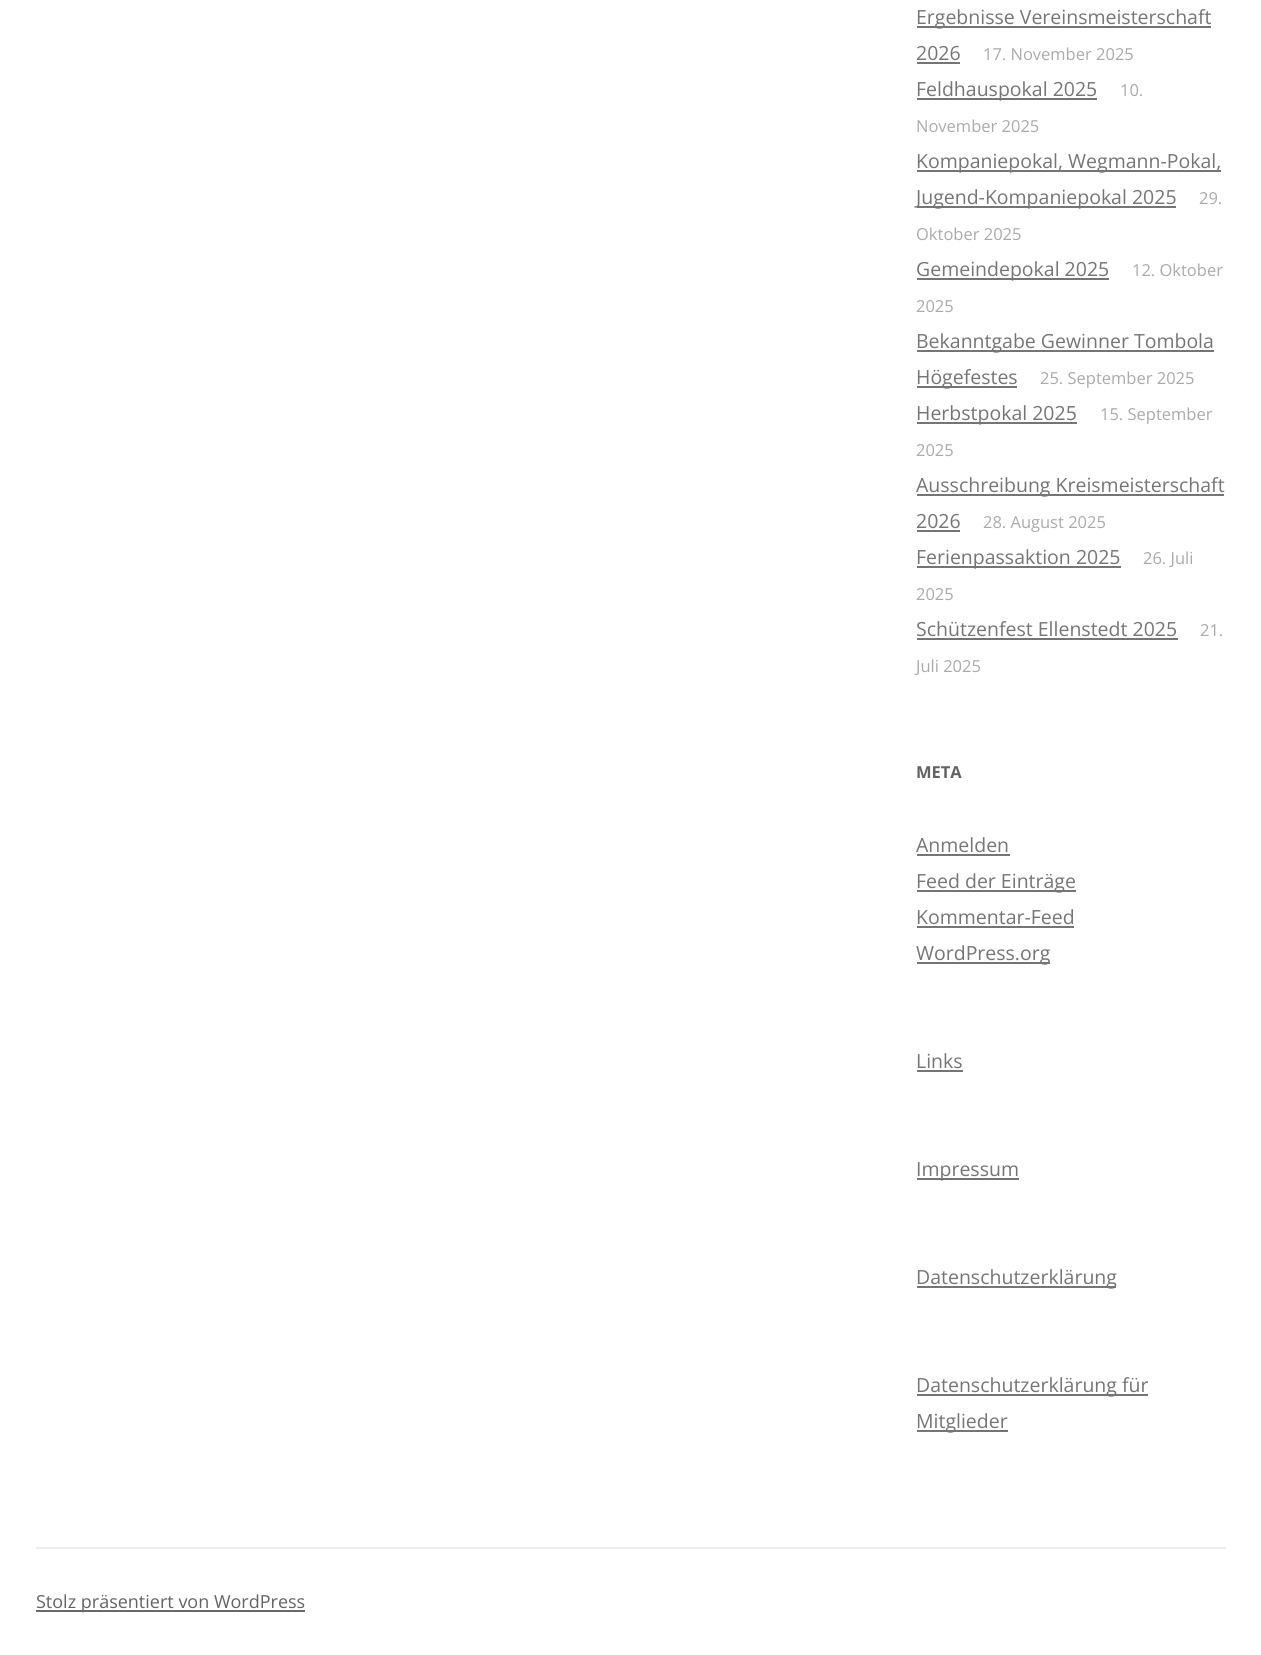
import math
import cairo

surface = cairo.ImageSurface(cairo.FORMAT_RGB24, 1261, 1655)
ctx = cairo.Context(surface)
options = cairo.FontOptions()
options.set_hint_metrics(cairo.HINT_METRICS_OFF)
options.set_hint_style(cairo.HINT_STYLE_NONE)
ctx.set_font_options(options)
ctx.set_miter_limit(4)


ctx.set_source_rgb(1, 1, 1)
ctx.paint()
ctx.set_source_rgb(0.459, 0.459, 0.459)
ctx.rectangle(917, 26, 294, 2)
ctx.fill()
ctx.select_font_face("Open Sans")
ctx.set_font_size(19.5)
ctx.move_to(916, 24)
ctx.show_text("Ergebnisse Vereinsmeisterschaft")
ctx.move_to(916, 60)
ctx.show_text("2026")
ctx.rectangle(917, 62, 43, 2)
ctx.fill()
ctx.set_font_size(16.5)
ctx.set_source_rgb(0.667, 0.667, 0.667)
ctx.move_to(983, 60)
ctx.show_text("17. November 2025")
ctx.set_source_rgb(0.459, 0.459, 0.459)
ctx.rectangle(917, 98, 180, 2)
ctx.fill()
ctx.set_font_size(19.5)
ctx.move_to(916, 96)
ctx.show_text("Feldhauspokal 2025")
ctx.set_font_size(16.5)
ctx.set_source_rgb(0.667, 0.667, 0.667)
ctx.move_to(1120, 96)
ctx.show_text("10.")
ctx.move_to(916, 132)
ctx.show_text("November 2025")
ctx.set_source_rgb(0.459, 0.459, 0.459)
ctx.rectangle(917, 170, 304, 2)
ctx.fill()
ctx.set_font_size(19.5)
ctx.move_to(916, 168)
ctx.show_text("Kompaniepokal, Wegmann-Pokal,")
ctx.rectangle(917, 206, 259, 2)
ctx.fill()
ctx.move_to(916, 204)
ctx.show_text("Jugend-Kompaniepokal 2025")
ctx.set_font_size(16.5)
ctx.set_source_rgb(0.667, 0.667, 0.667)
ctx.move_to(1199, 204)
ctx.show_text("29.")
ctx.move_to(916, 240)
ctx.show_text("Oktober 2025")
ctx.set_source_rgb(0.459, 0.459, 0.459)
ctx.rectangle(917, 278, 192, 2)
ctx.fill()
ctx.set_font_size(19.5)
ctx.move_to(916, 276)
ctx.show_text("Gemeindepokal 2025")
ctx.set_font_size(16.5)
ctx.set_source_rgb(0.667, 0.667, 0.667)
ctx.move_to(1132, 276)
ctx.show_text("12. Oktober")
ctx.move_to(916, 312)
ctx.show_text("2025")
ctx.set_source_rgb(0.459, 0.459, 0.459)
ctx.rectangle(917, 350, 297, 2)
ctx.fill()
ctx.set_font_size(19.5)
ctx.move_to(916, 348)
ctx.show_text("Bekanntgabe Gewinner Tombola")
ctx.rectangle(917, 386, 100, 2)
ctx.fill()
ctx.move_to(916, 384)
ctx.show_text("Högefestes")
ctx.set_font_size(16.5)
ctx.set_source_rgb(0.667, 0.667, 0.667)
ctx.move_to(1040, 384)
ctx.show_text("25. September 2025")
ctx.set_source_rgb(0.459, 0.459, 0.459)
ctx.rectangle(917, 422, 160, 2)
ctx.fill()
ctx.set_font_size(19.5)
ctx.move_to(916, 420)
ctx.show_text("Herbstpokal 2025")
ctx.set_font_size(16.5)
ctx.set_source_rgb(0.667, 0.667, 0.667)
ctx.move_to(1100, 420)
ctx.show_text("15. September")
ctx.move_to(916, 456)
ctx.show_text("2025")
ctx.set_source_rgb(0.459, 0.459, 0.459)
ctx.rectangle(917, 494, 307, 2)
ctx.fill()
ctx.set_font_size(19.5)
ctx.move_to(916, 492)
ctx.show_text("Ausschreibung Kreismeisterschaft")
ctx.move_to(916, 528)
ctx.show_text("2026")
ctx.rectangle(917, 530, 43, 2)
ctx.fill()
ctx.set_font_size(16.5)
ctx.set_source_rgb(0.667, 0.667, 0.667)
ctx.move_to(983, 528)
ctx.show_text("28. August 2025")
ctx.set_source_rgb(0.459, 0.459, 0.459)
ctx.rectangle(917, 566, 204, 2)
ctx.fill()
ctx.set_font_size(19.5)
ctx.move_to(916, 564)
ctx.show_text("Ferienpassaktion 2025")
ctx.set_font_size(16.5)
ctx.set_source_rgb(0.667, 0.667, 0.667)
ctx.move_to(1143, 564)
ctx.show_text("26. Juli")
ctx.move_to(916, 600)
ctx.show_text("2025")
ctx.set_font_size(19.5)
ctx.set_source_rgb(0.459, 0.459, 0.459)
ctx.move_to(916, 636)
ctx.show_text("Schützenfest Ellenstedt 2025")
ctx.rectangle(917, 638, 261, 2)
ctx.fill()
ctx.set_font_size(16.5)
ctx.set_source_rgb(0.667, 0.667, 0.667)
ctx.move_to(1200, 636)
ctx.show_text("21.")
ctx.move_to(916, 672)
ctx.show_text("Juli 2025")
ctx.select_font_face("Open Sans", cairo.FONT_SLANT_NORMAL, cairo.FONT_WEIGHT_BOLD)
ctx.set_source_rgb(0.388, 0.388, 0.388)
ctx.move_to(916, 778)
ctx.show_text("META")
ctx.select_font_face("Open Sans")
ctx.set_font_size(19.5)
ctx.set_source_rgb(0.459, 0.459, 0.459)
ctx.move_to(916, 852)
ctx.show_text("Anmelden")
ctx.rectangle(917, 854, 93, 2)
ctx.fill()
ctx.rectangle(917, 890, 159, 2)
ctx.fill()
ctx.move_to(916, 888)
ctx.show_text("Feed der Einträge")
ctx.move_to(916, 924)
ctx.show_text("Kommentar-Feed")
ctx.rectangle(917, 926, 157, 2)
ctx.fill()
ctx.rectangle(917, 962, 133, 2)
ctx.fill()
ctx.move_to(916, 960)
ctx.show_text("WordPress.org")
ctx.move_to(916, 1068)
ctx.show_text("Links")
ctx.rectangle(917, 1070, 46, 2)
ctx.fill()
ctx.rectangle(917, 1178, 102, 2)
ctx.fill()
ctx.move_to(916, 1176)
ctx.show_text("Impressum")
ctx.rectangle(917, 1286, 199, 2)
ctx.fill()
ctx.move_to(916, 1284)
ctx.show_text("Datenschutzerklärung")
ctx.rectangle(917, 1394, 231, 2)
ctx.fill()
ctx.move_to(916, 1392)
ctx.show_text("Datenschutzerklärung für")
ctx.rectangle(917, 1430, 91, 2)
ctx.fill()
ctx.move_to(916, 1428)
ctx.show_text("Mitglieder")
ctx.set_source_rgb(0.929, 0.929, 0.929)
ctx.rectangle(36, 1547, 1190, 2)
ctx.fill()
ctx.set_source_rgb(0.408, 0.408, 0.408)
ctx.rectangle(36, 1610, 269, 2)
ctx.fill()
ctx.set_font_size(18)
ctx.set_source_rgb(0.388, 0.388, 0.388)
ctx.move_to(36, 1608)
ctx.show_text("Stolz präsentiert von WordPress")
surface.write_to_png("page.png")
